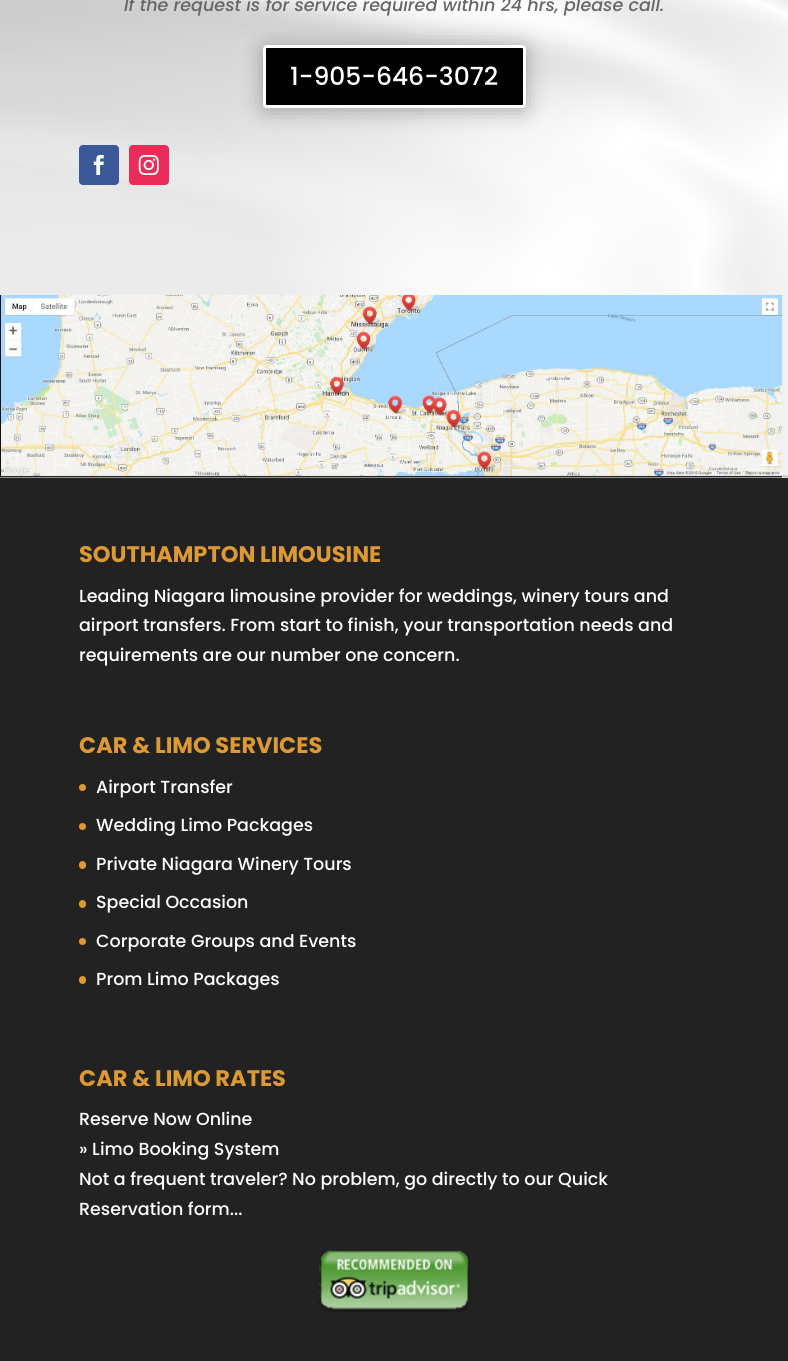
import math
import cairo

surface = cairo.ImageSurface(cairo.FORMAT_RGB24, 788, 1361)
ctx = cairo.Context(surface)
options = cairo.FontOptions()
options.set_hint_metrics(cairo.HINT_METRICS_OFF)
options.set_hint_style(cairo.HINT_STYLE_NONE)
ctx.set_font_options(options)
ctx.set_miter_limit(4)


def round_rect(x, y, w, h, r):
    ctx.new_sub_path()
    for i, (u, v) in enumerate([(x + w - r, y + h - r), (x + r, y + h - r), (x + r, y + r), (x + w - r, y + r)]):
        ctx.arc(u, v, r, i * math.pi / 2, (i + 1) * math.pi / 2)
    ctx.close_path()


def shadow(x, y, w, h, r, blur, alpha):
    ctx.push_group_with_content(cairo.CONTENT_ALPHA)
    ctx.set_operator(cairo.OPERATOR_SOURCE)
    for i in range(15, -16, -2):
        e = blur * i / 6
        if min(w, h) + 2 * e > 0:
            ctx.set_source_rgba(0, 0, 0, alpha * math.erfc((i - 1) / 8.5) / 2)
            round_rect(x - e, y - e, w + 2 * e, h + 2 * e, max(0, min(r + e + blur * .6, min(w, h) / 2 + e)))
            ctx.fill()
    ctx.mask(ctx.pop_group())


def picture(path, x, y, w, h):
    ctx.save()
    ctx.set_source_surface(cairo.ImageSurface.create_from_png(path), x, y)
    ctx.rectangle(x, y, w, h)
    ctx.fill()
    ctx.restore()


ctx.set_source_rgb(1, 1, 1)
ctx.paint()
picture("img1.png", 0, 0, 788, 295)
ctx.select_font_face("Poppins Medium", cairo.FONT_SLANT_ITALIC)
ctx.set_font_size(17.5)
ctx.set_source_rgb(0.4, 0.4, 0.4)
ctx.move_to(124, 11)
ctx.show_text("If the request is for service required within 24 hrs, please call.")
ctx.set_source_rgb(0, 0, 0)
shadow(263, 48, 263, 62, 4, 11, 0.3)
ctx.set_source_rgb(0, 0, 0)
round_rect(264.5, 46.5, 260, 60, 2.5)
ctx.fill_preserve()
ctx.set_source_rgb(1, 1, 1)
ctx.set_line_width(3)
ctx.stroke()
ctx.select_font_face("Poppins Medium")
ctx.set_font_size(25)
ctx.move_to(290, 85)
ctx.show_text("1-905-646-3072")
ctx.set_source_rgb(0.231, 0.349, 0.596)
round_rect(79, 145, 40, 40, 4)
ctx.fill()
picture("img2.png", 93, 155, 11, 20)
ctx.set_source_rgb(0.918, 0.173, 0.349)
round_rect(129, 145, 40, 40, 4)
ctx.fill()
picture("img3.png", 138, 155, 21, 20)
picture("img4.png", 0, 295, 788, 183)
ctx.set_source_rgb(0.133, 0.133, 0.133)
ctx.rectangle(0, 478, 788, 883)
ctx.fill()
ctx.select_font_face("Poppins", cairo.FONT_SLANT_NORMAL, cairo.FONT_WEIGHT_BOLD)
ctx.set_font_size(22.5)
ctx.set_source_rgb(0.867, 0.6, 0.2)
ctx.move_to(79, 562)
ctx.show_text("SOUTHAMPTON LIMOUSINE")
ctx.select_font_face("Poppins Medium")
ctx.set_font_size(17.5)
ctx.set_source_rgb(1, 1, 1)
ctx.move_to(79, 602)
ctx.show_text("Leading Niagara limousine provider for weddings, winery tours and")
ctx.move_to(79, 631)
ctx.show_text("airport transfers. From start to finish, your transportation needs and")
ctx.move_to(79, 661)
ctx.show_text("requirements are our number one concern.")
ctx.select_font_face("Poppins", cairo.FONT_SLANT_NORMAL, cairo.FONT_WEIGHT_BOLD)
ctx.set_font_size(22.5)
ctx.set_source_rgb(0.867, 0.6, 0.2)
ctx.move_to(79, 753)
ctx.show_text("CAR & LIMO SERVICES")
ctx.new_path()
ctx.arc(82.5, 787.5, 3.5, 0, 2 * math.pi)
ctx.fill()
ctx.select_font_face("Poppins Medium")
ctx.set_font_size(17.5)
ctx.set_source_rgb(1, 1, 1)
ctx.move_to(96, 793)
ctx.show_text("Airport Transfer")
ctx.set_source_rgb(0.867, 0.6, 0.2)
ctx.new_path()
ctx.arc(82.5, 826.5, 3.5, 0, 2 * math.pi)
ctx.fill()
ctx.set_source_rgb(1, 1, 1)
ctx.move_to(96, 831)
ctx.show_text("Wedding Limo Packages")
ctx.set_source_rgb(0.867, 0.6, 0.2)
round_rect(79, 861, 7, 8, 3.5)
ctx.fill()
ctx.set_source_rgb(1, 1, 1)
ctx.move_to(96, 870)
ctx.show_text("Private Niagara Winery Tours")
ctx.set_source_rgb(0.867, 0.6, 0.2)
round_rect(79, 900, 7, 8, 3.5)
ctx.fill()
ctx.set_source_rgb(1, 1, 1)
ctx.move_to(96, 908)
ctx.show_text("Special Occasion")
ctx.set_source_rgb(0.867, 0.6, 0.2)
ctx.new_path()
ctx.arc(82.5, 941.5, 3.5, 0, 2 * math.pi)
ctx.fill()
ctx.set_source_rgb(1, 1, 1)
ctx.move_to(96, 947)
ctx.show_text("Corporate Groups and Events")
ctx.set_source_rgb(0.867, 0.6, 0.2)
round_rect(79, 976, 7, 8, 3.5)
ctx.fill()
ctx.set_source_rgb(1, 1, 1)
ctx.move_to(96, 985)
ctx.show_text("Prom Limo Packages")
ctx.select_font_face("Poppins", cairo.FONT_SLANT_NORMAL, cairo.FONT_WEIGHT_BOLD)
ctx.set_font_size(22.5)
ctx.set_source_rgb(0.867, 0.6, 0.2)
ctx.move_to(79, 1086)
ctx.show_text("CAR & LIMO RATES")
ctx.select_font_face("Poppins Medium")
ctx.set_font_size(17.5)
ctx.set_source_rgb(1, 1, 1)
ctx.move_to(79, 1125)
ctx.show_text("Reserve Now Online")
ctx.move_to(79, 1155)
ctx.show_text("» Limo Booking System")
ctx.move_to(79, 1185)
ctx.show_text("Not a frequent traveler? No problem, go directly to our Quick")
ctx.move_to(79, 1215)
ctx.show_text("Reservation form...")
picture("img5.png", 318, 1250, 152, 62)
surface.write_to_png("page.png")
